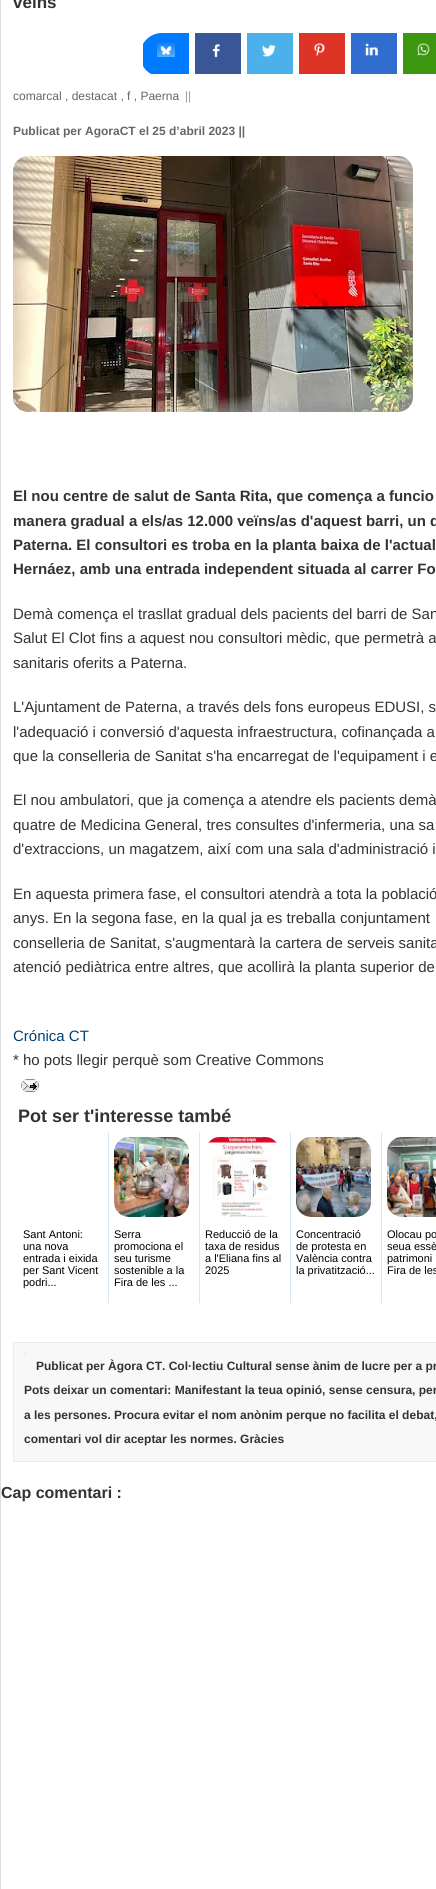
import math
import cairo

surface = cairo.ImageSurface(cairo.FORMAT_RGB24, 436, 1889)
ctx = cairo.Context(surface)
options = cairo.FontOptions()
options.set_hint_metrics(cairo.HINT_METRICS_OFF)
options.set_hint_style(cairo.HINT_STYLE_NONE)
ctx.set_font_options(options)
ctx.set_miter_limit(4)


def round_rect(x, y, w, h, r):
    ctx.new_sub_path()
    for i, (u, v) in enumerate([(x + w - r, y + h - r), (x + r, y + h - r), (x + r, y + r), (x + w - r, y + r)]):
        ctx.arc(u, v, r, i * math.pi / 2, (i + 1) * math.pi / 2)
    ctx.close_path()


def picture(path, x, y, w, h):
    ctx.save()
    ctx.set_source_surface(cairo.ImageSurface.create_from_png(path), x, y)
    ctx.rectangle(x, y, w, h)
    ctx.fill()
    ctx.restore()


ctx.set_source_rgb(1, 1, 1)
ctx.paint()
ctx.rectangle(0.5, -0.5, 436, 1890)
ctx.set_source_rgb(0.867, 0.867, 0.867)
ctx.set_line_width(1)
ctx.stroke()
ctx.select_font_face("Liberation Sans", cairo.FONT_SLANT_NORMAL, cairo.FONT_WEIGHT_BOLD)
ctx.set_font_size(17)
ctx.set_source_rgb(0.2, 0.2, 0.2)
ctx.move_to(13, 8)
ctx.show_text("veïns")
ctx.save()
round_rect(140, 33, 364, 44, 22)
ctx.clip()
ctx.set_source_rgb(0, 0.482, 1)
ctx.rectangle(143, 33, 46, 41)
ctx.fill()
ctx.restore()
picture("img1.png", 157, 43, 18, 14)
ctx.set_source_rgb(0.224, 0.341, 0.588)
ctx.rectangle(195, 33, 46, 41)
ctx.fill()
picture("img2.png", 212, 43, 8, 15)
ctx.set_source_rgb(0.298, 0.69, 0.918)
ctx.rectangle(247, 33, 46, 41)
ctx.fill()
picture("img3.png", 262, 44, 14, 13)
ctx.set_source_rgb(0.871, 0.204, 0.145)
ctx.rectangle(299, 33, 46, 41)
ctx.fill()
picture("img4.png", 314, 43, 11, 13)
ctx.set_source_rgb(0.192, 0.427, 0.808)
ctx.rectangle(351, 33, 46, 41)
ctx.fill()
picture("img5.png", 365, 43, 13, 13)
ctx.set_source_rgb(0.239, 0.588, 0.063)
ctx.rectangle(403, 33, 33, 41)
ctx.fill()
picture("img6.png", 417, 43, 13, 13)
ctx.select_font_face("Liberation Sans")
ctx.set_font_size(12)
ctx.set_source_rgb(0.4, 0.4, 0.4)
ctx.move_to(13, 100)
ctx.show_text("comarcal , destacat , f , Paerna")
ctx.set_source_rgb(0.6, 0.6, 0.6)
ctx.move_to(185, 100)
ctx.show_text("||")
ctx.select_font_face("Liberation Sans", cairo.FONT_SLANT_NORMAL, cairo.FONT_WEIGHT_BOLD)
ctx.set_source_rgb(0.4, 0.4, 0.4)
ctx.move_to(13, 135)
ctx.show_text("Publicat per AgoraCT el 25 d’abril 2023 ||")
picture("img7.png", 13, 156, 400, 256)
ctx.set_font_size(15)
ctx.set_source_rgb(0.2, 0.2, 0.2)
ctx.move_to(13, 501)
ctx.show_text("El nou centre de salut de Santa Rita, que comença a funcio")
ctx.move_to(13, 526)
ctx.show_text("manera gradual a els/as 12.000 veïns/as d'aquest barri, un d")
ctx.move_to(13, 550)
ctx.show_text("Paterna. El consultori es troba en la planta baixa de l'actual")
ctx.move_to(13, 574)
ctx.show_text("Hernáez, amb una entrada independent situada al carrer Fo")
ctx.select_font_face("Liberation Sans")
ctx.move_to(13, 619)
ctx.show_text("Demà comença el trasllat gradual dels pacients del barri de San")
ctx.move_to(13, 643)
ctx.show_text("Salut El Clot fins a aquest nou consultori mèdic, que permetrà a")
ctx.move_to(13, 668)
ctx.show_text("sanitaris oferits a Paterna.")
ctx.move_to(13, 712)
ctx.show_text("L'Ajuntament de Paterna, a través dels fons europeus EDUSI, s")
ctx.move_to(13, 737)
ctx.show_text("l'adequació i conversió d'aquesta infraestructura, cofinançada a")
ctx.move_to(13, 761)
ctx.show_text("que la conselleria de Sanitat s'ha encarregat de l'equipament i e")
ctx.move_to(13, 805)
ctx.show_text("El nou ambulatori, que ja comença a atendre els pacients demà")
ctx.move_to(13, 830)
ctx.show_text("quatre de Medicina General, tres consultes d'infermeria, una sa")
ctx.move_to(13, 854)
ctx.show_text("d'extraccions, un magatzem, així com una sala d'administració i")
ctx.move_to(13, 899)
ctx.show_text("En aquesta primera fase, el consultori atendrà a tota la població")
ctx.move_to(13, 923)
ctx.show_text("anys. En la segona fase, en la qual ja es treballa conjuntament")
ctx.move_to(13, 948)
ctx.show_text("conselleria de Sanitat, s'augmentarà la cartera de serveis sanita")
ctx.move_to(13, 972)
ctx.show_text("atenció pediàtrica entre altres, que acollirà la planta superior de")
ctx.set_source_rgb(0, 0.259, 0.463)
ctx.move_to(13, 1041)
ctx.show_text("Crónica CT")
ctx.set_source_rgb(0.2, 0.2, 0.2)
ctx.move_to(13, 1065)
ctx.show_text("* ho pots llegir perquè som Creative Commons")
picture("img8.png", 21, 1079, 18, 13)
ctx.select_font_face("Liberation Sans", cairo.FONT_SLANT_NORMAL, cairo.FONT_WEIGHT_BOLD)
ctx.set_font_size(18)
ctx.move_to(18, 1122)
ctx.show_text("Pot ser t'interesse també")
ctx.select_font_face("Liberation Sans")
ctx.set_font_size(11)
ctx.set_source_rgb(0, 0, 0)
ctx.move_to(23, 1238)
ctx.show_text("Sant Antoni:")
ctx.move_to(23, 1250)
ctx.show_text("una nova")
ctx.move_to(23, 1262)
ctx.show_text("entrada i eixida")
ctx.move_to(23, 1274)
ctx.show_text("per Sant Vicent")
ctx.move_to(23, 1286)
ctx.show_text("podri...")
ctx.set_source_rgb(0.831, 0.918, 0.949)
ctx.rectangle(108, 1132, 1, 171)
ctx.fill()
picture("img9.png", 114, 1137, 75, 80)
ctx.set_source_rgb(0, 0, 0)
ctx.move_to(114, 1238)
ctx.show_text("Serra")
ctx.move_to(114, 1250)
ctx.show_text("promociona el")
ctx.move_to(114, 1262)
ctx.show_text("seu turisme")
ctx.move_to(114, 1274)
ctx.show_text("sostenible a la")
ctx.move_to(114, 1286)
ctx.show_text("Fira de les ...")
ctx.set_source_rgb(0.831, 0.918, 0.949)
ctx.rectangle(199, 1132, 1, 171)
ctx.fill()
picture("img10.png", 208, 1137, 69, 80)
ctx.set_source_rgb(0, 0, 0)
ctx.move_to(205, 1238)
ctx.show_text("Reducció de la")
ctx.move_to(205, 1250)
ctx.show_text("taxa de residus")
ctx.move_to(205, 1262)
ctx.show_text("a l'Eliana fins al")
ctx.move_to(205, 1274)
ctx.show_text("2025")
ctx.set_source_rgb(0.831, 0.918, 0.949)
ctx.rectangle(290, 1132, 1, 171)
ctx.fill()
picture("img11.png", 296, 1137, 75, 80)
ctx.set_source_rgb(0, 0, 0)
ctx.move_to(296, 1238)
ctx.show_text("Concentració")
ctx.move_to(296, 1250)
ctx.show_text("de protesta en")
ctx.move_to(296, 1262)
ctx.show_text("València contra")
ctx.move_to(296, 1274)
ctx.show_text("la privatització...")
ctx.set_source_rgb(0.831, 0.918, 0.949)
ctx.rectangle(381, 1132, 1, 171)
ctx.fill()
picture("img12.png", 387, 1137, 49, 80)
ctx.set_source_rgb(0, 0, 0)
ctx.move_to(387, 1238)
ctx.show_text("Olocau po")
ctx.move_to(387, 1250)
ctx.show_text("seua essè")
ctx.move_to(387, 1262)
ctx.show_text("patrimoni")
ctx.move_to(387, 1274)
ctx.show_text("Fira de les")
ctx.set_source_rgb(0.969, 0.969, 0.969)
ctx.rectangle(13.5, 1342.5, 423, 119)
ctx.fill_preserve()
ctx.set_source_rgb(0.925, 0.929, 0.91)
ctx.stroke()
ctx.rectangle(24, 1353, 2, 2)
ctx.fill()
ctx.select_font_face("Liberation Sans", cairo.FONT_SLANT_NORMAL, cairo.FONT_WEIGHT_BOLD)
ctx.set_font_size(12)
ctx.set_source_rgb(0.2, 0.2, 0.2)
ctx.move_to(36, 1370)
ctx.show_text("Publicat per Àgora CT. Col·lectiu Cultural sense ànim de lucre per a pr")
ctx.move_to(24, 1394)
ctx.show_text("Pots deixar un comentari: Manifestant la teua opinió, sense censura, per")
ctx.move_to(24, 1419)
ctx.show_text("a les persones. Procura evitar el nom anònim perque no facilita el debat,")
ctx.move_to(24, 1443)
ctx.show_text("comentari vol dir aceptar les normes. Gràcies")
ctx.set_font_size(16)
ctx.move_to(1, 1498)
ctx.show_text("Cap comentari :")
surface.write_to_png("page.png")
